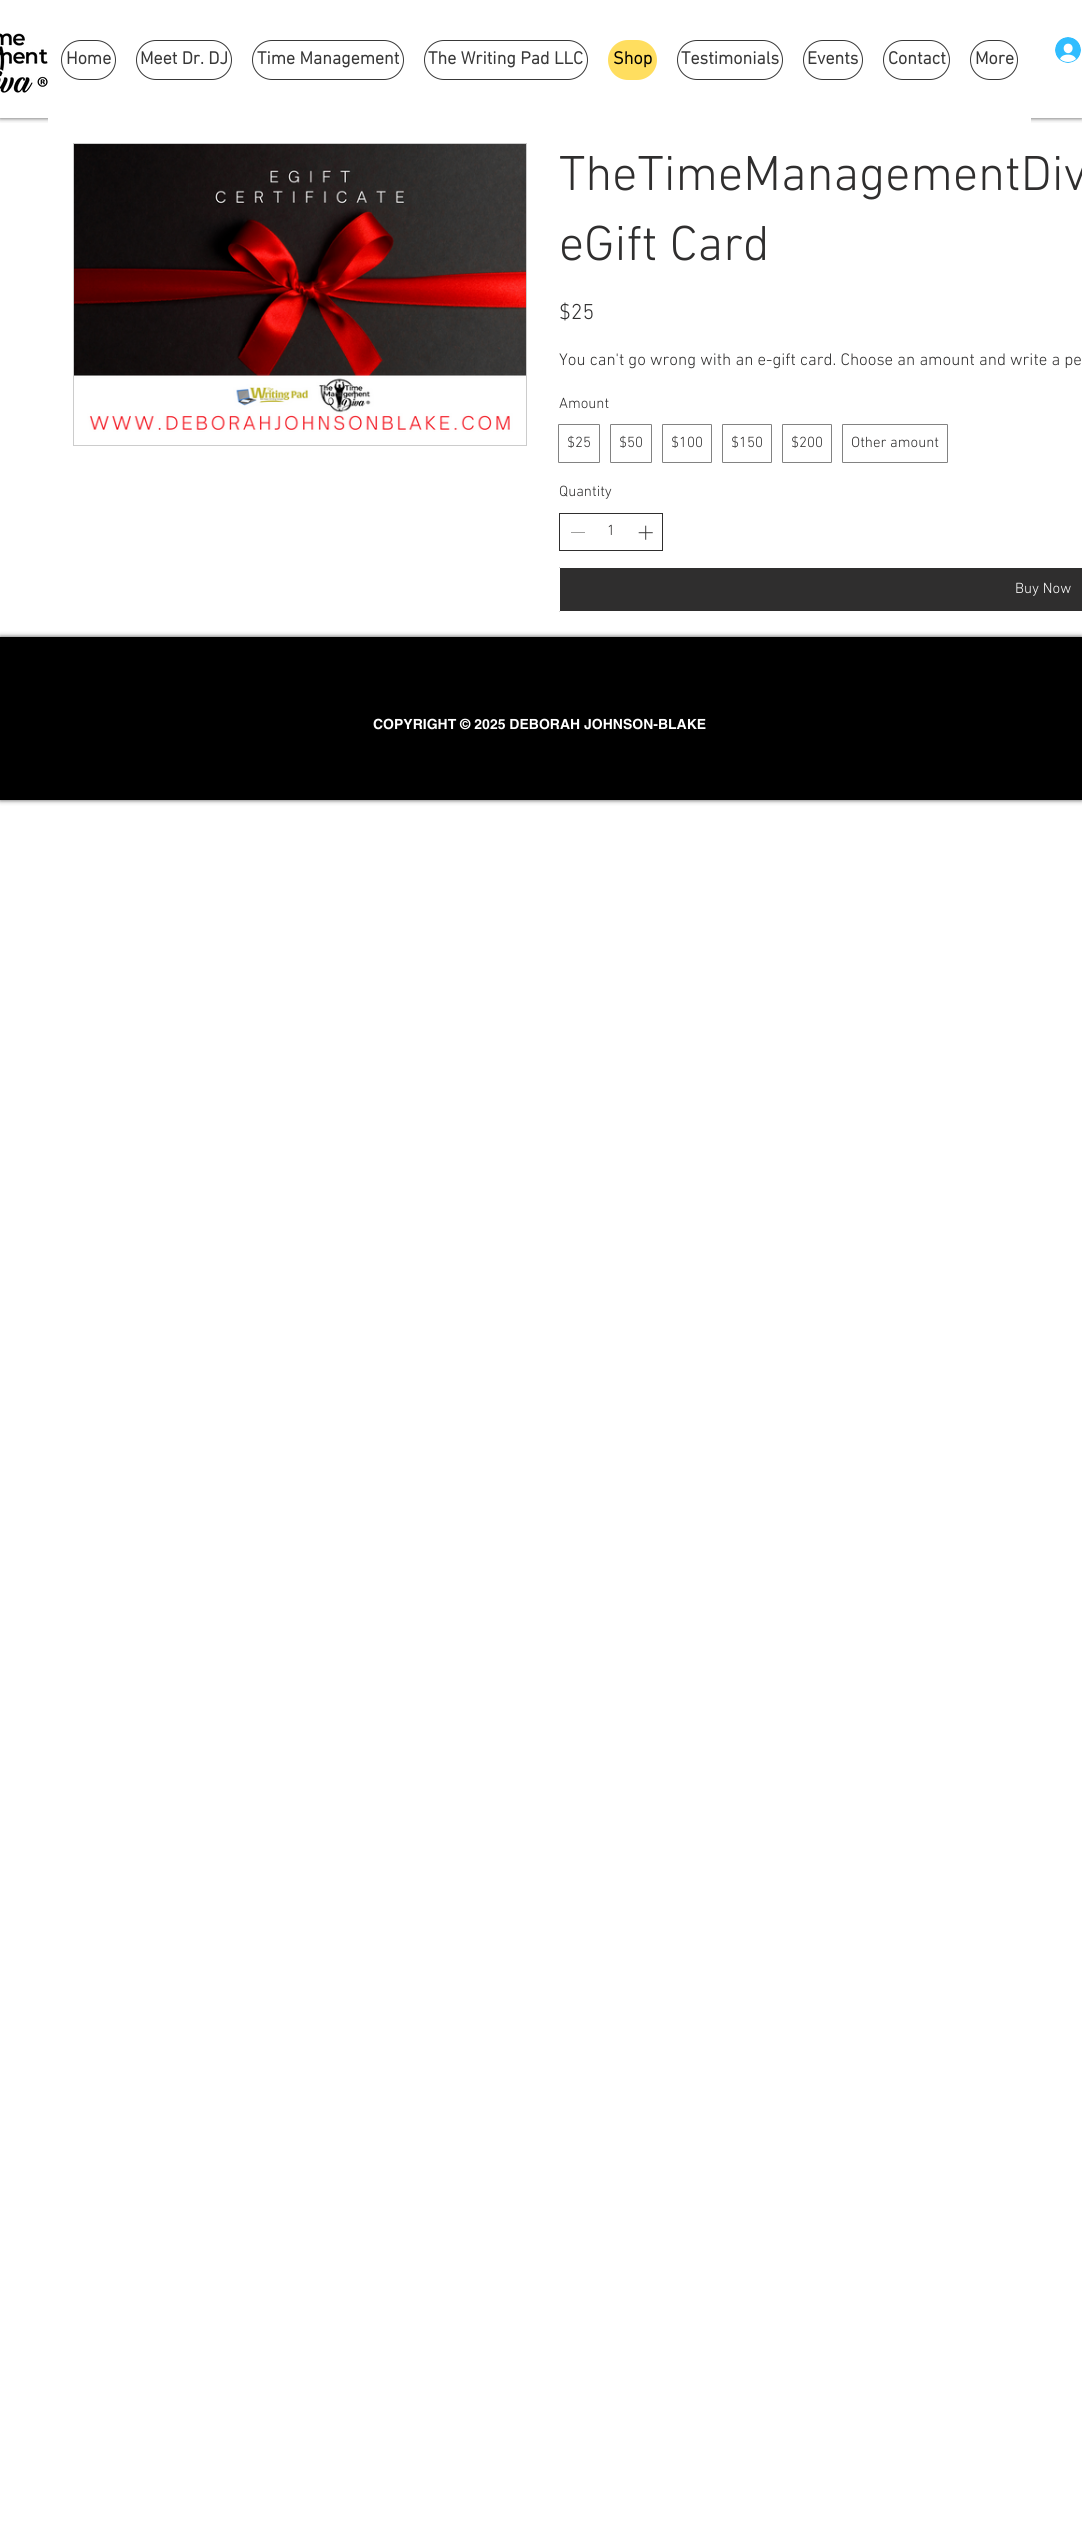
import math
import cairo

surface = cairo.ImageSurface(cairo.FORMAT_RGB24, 1082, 2536)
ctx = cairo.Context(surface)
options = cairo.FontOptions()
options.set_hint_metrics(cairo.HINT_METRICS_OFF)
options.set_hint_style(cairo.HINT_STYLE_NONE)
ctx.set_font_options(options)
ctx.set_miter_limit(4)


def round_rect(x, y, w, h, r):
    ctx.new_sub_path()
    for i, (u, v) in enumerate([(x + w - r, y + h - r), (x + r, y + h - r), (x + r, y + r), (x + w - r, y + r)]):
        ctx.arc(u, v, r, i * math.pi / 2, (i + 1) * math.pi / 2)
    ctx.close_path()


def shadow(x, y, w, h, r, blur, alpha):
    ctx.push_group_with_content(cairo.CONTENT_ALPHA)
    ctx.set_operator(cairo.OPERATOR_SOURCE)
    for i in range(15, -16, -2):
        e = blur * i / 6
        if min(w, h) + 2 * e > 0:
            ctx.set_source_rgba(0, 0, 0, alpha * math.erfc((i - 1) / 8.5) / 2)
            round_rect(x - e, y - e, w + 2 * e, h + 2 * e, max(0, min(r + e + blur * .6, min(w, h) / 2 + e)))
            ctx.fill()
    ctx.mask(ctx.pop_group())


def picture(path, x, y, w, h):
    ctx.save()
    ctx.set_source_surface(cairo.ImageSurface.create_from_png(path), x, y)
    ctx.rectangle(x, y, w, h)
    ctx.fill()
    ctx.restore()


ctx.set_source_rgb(1, 1, 1)
ctx.paint()
ctx.save()
ctx.rectangle(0, 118, 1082, 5)
ctx.clip()
ctx.set_source_rgb(0, 0, 0)
shadow(0, 0, 1082, 118, 0, 2.5, 0.7)
ctx.restore()
picture("img1.png", 0, 33, 48, 60)
round_rect(61.5, 40.5, 54, 39, 19.5)
ctx.set_source_rgb(0.22, 0.22, 0.22)
ctx.set_line_width(1)
ctx.stroke()
ctx.select_font_face("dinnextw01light", cairo.FONT_SLANT_NORMAL, cairo.FONT_WEIGHT_BOLD)
ctx.set_font_size(18)
ctx.move_to(66, 64)
ctx.show_text("Home")
round_rect(136.5, 40.5, 95, 39, 19.5)
ctx.stroke()
ctx.move_to(140, 64)
ctx.show_text("Meet Dr. DJ")
round_rect(252.5, 40.5, 151, 39, 19.5)
ctx.stroke()
ctx.move_to(257, 64)
ctx.show_text("Time Management")
round_rect(424.5, 40.5, 163, 39, 19.5)
ctx.stroke()
ctx.move_to(428, 64)
ctx.show_text("The Writing Pad LLC")
ctx.set_source_rgb(1, 0.871, 0.373)
round_rect(608, 40, 49, 40, 20)
ctx.fill()
ctx.set_source_rgb(0, 0, 0)
ctx.move_to(613, 64)
ctx.show_text("Shop")
round_rect(677.5, 40.5, 105, 39, 19.5)
ctx.set_source_rgb(0.22, 0.22, 0.22)
ctx.stroke()
ctx.move_to(681, 64)
ctx.show_text("Testimonials")
round_rect(803.5, 40.5, 59, 39, 19.5)
ctx.stroke()
ctx.move_to(807, 64)
ctx.show_text("Events")
round_rect(883.5, 40.5, 66, 39, 19.5)
ctx.stroke()
ctx.move_to(888, 64)
ctx.show_text("Contact")
round_rect(970.5, 40.5, 47, 39, 19.5)
ctx.stroke()
ctx.move_to(975, 64)
ctx.show_text("More")
picture("img2.png", 1055, 37, 26, 26)
ctx.set_source_rgb(1, 1, 1)
ctx.rectangle(48, 118, 983, 5)
ctx.fill()
ctx.rectangle(73.5, 143.5, 453, 302)
ctx.set_source_rgb(0.8, 0.8, 0.8)
ctx.stroke()
picture("img3.png", 74, 144, 452, 288)
ctx.select_font_face("dinnextw01light Light")
ctx.set_font_size(50)
ctx.set_source_rgb(0.184, 0.18, 0.18)
ctx.move_to(559, 190)
ctx.show_text("TheTimeManagementDiv")
ctx.move_to(559, 260)
ctx.show_text("eGift Card")
ctx.set_font_size(22)
ctx.move_to(559, 319)
ctx.show_text("$25")
ctx.set_font_size(17)
ctx.move_to(559, 365)
ctx.show_text("You can't go wrong with an e-gift card. Choose an amount and write a pe")
ctx.set_font_size(15)
ctx.move_to(559, 408)
ctx.show_text("Amount")
round_rect(558.5, 424.5, 41, 38, 0.5)
ctx.set_source_rgb(0.51, 0.51, 0.51)
ctx.stroke()
ctx.set_source_rgb(0.184, 0.18, 0.18)
ctx.move_to(567, 447)
ctx.show_text("$25")
round_rect(610.5, 424.5, 41, 38, 0.5)
ctx.set_source_rgb(0.51, 0.51, 0.51)
ctx.stroke()
ctx.set_source_rgb(0.184, 0.18, 0.18)
ctx.move_to(619, 447)
ctx.show_text("$50")
round_rect(662.5, 424.5, 49, 38, 0.5)
ctx.set_source_rgb(0.51, 0.51, 0.51)
ctx.stroke()
ctx.set_source_rgb(0.184, 0.18, 0.18)
ctx.move_to(671, 447)
ctx.show_text("$100")
round_rect(722.5, 424.5, 49, 38, 0.5)
ctx.set_source_rgb(0.51, 0.51, 0.51)
ctx.stroke()
ctx.set_source_rgb(0.184, 0.18, 0.18)
ctx.move_to(731, 447)
ctx.show_text("$150")
round_rect(782.5, 424.5, 49, 38, 0.5)
ctx.set_source_rgb(0.51, 0.51, 0.51)
ctx.stroke()
ctx.set_source_rgb(0.184, 0.18, 0.18)
ctx.move_to(791, 447)
ctx.show_text("$200")
round_rect(842.5, 424.5, 105, 38, 0.5)
ctx.set_source_rgb(0.51, 0.51, 0.51)
ctx.stroke()
ctx.set_source_rgb(0.184, 0.18, 0.18)
ctx.move_to(851, 447)
ctx.show_text("Other amount")
ctx.move_to(559, 496)
ctx.show_text("Quantity")
ctx.rectangle(559.5, 513.5, 103, 37)
ctx.stroke()
ctx.set_source_rgb(0.627, 0.627, 0.624)
ctx.rectangle(571, 532, 14, 1)
ctx.fill()
ctx.set_source_rgb(0.184, 0.18, 0.18)
ctx.move_to(607, 535)
ctx.show_text("1")
picture("img4.png", 638, 525, 15, 15)
ctx.new_path()
ctx.move_to(560, 567)
ctx.line_to(1082, 567)
ctx.line_to(1082, 612)
ctx.line_to(560, 612)
ctx.curve_to(559.5, 612, 559, 611.5, 559, 611)
ctx.line_to(559, 568)
ctx.curve_to(559, 567.5, 559.5, 567, 560, 567)
ctx.close_path()
ctx.fill()
round_rect(559.5, 567.5, 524, 44, 0.5)
ctx.set_source_rgb(1, 1, 1)
ctx.stroke()
ctx.move_to(1015, 593)
ctx.show_text("Buy Now")
ctx.set_source_rgb(0, 0, 0)
shadow(0, 637, 1082, 163, 0, 2.5, 0.7)
ctx.set_source_rgb(0, 0, 0)
ctx.rectangle(0, 637, 1082, 163)
ctx.fill()
ctx.select_font_face("helvetica", cairo.FONT_SLANT_NORMAL, cairo.FONT_WEIGHT_BOLD)
ctx.set_font_size(14)
ctx.set_source_rgb(1, 1, 1)
ctx.move_to(373, 729)
ctx.show_text("COPYRIGHT © 2025 DEBORAH JOHNSON-BLAKE")
surface.write_to_png("page.png")
